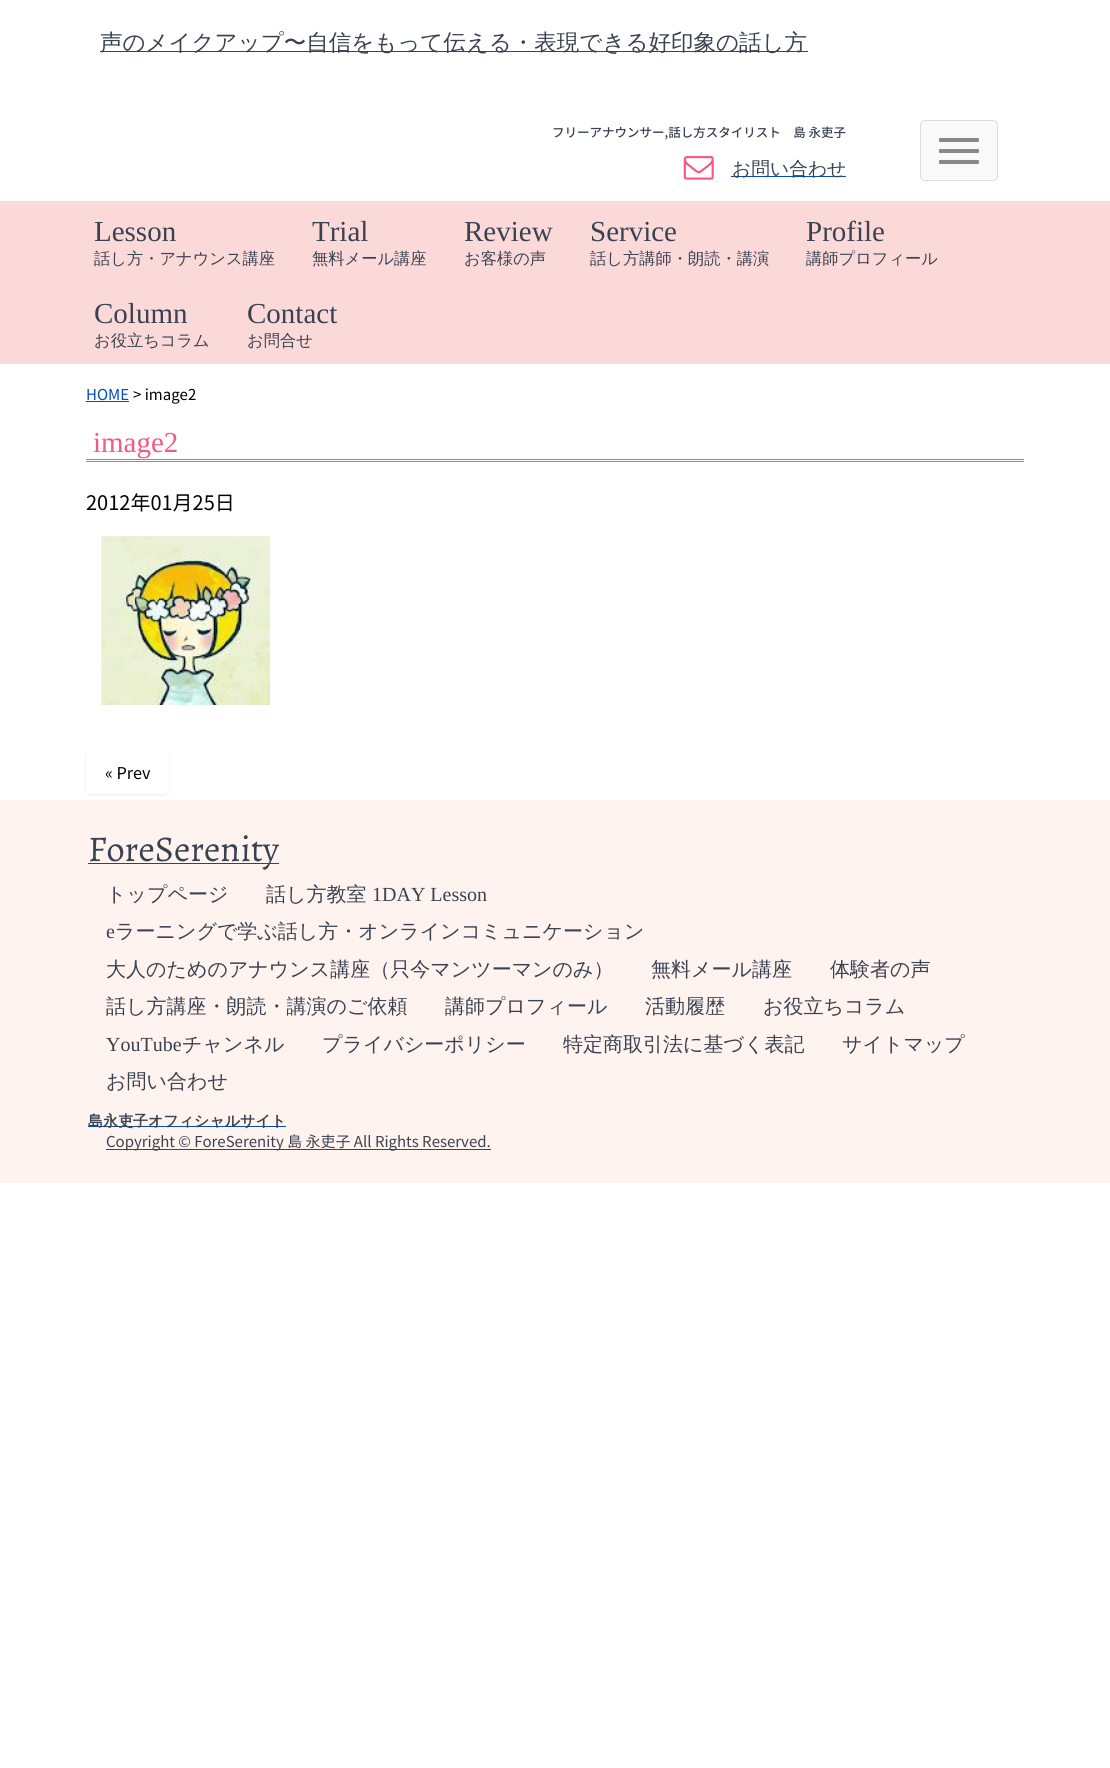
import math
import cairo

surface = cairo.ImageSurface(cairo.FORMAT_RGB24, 1110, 1768)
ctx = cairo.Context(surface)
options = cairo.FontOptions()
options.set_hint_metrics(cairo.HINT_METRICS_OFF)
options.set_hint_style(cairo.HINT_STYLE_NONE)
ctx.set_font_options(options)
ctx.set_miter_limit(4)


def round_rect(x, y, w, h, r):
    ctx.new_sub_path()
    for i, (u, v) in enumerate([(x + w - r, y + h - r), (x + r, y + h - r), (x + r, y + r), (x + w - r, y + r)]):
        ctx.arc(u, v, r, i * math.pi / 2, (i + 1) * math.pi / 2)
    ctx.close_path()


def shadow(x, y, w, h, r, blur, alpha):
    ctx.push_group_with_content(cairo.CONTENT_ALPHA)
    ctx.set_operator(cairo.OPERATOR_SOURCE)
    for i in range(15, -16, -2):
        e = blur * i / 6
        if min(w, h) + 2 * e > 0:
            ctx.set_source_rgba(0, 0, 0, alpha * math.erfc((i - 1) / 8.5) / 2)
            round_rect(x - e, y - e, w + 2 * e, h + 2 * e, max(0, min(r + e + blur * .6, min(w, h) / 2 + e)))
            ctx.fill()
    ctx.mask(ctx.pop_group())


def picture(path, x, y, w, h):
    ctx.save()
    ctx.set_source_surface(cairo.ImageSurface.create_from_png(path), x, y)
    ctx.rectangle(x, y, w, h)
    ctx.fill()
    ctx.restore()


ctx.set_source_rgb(1, 1, 1)
ctx.paint()
ctx.set_source_rgb(0, 0.298, 0.729)
ctx.rectangle(100, 51, 708, 1)
ctx.fill()
ctx.select_font_face("WenQuanYi Zen Hei Medium")
ctx.set_font_size(22.5)
ctx.set_source_rgb(0.227, 0.259, 0.318)
ctx.move_to(100, 50)
ctx.show_text("声のメイクアップ〜自信をもって伝える・表現できる好印象の話し方")
ctx.select_font_face("Noto Sans JP Medium")
ctx.set_font_size(12.5)
ctx.move_to(552, 137)
ctx.show_text("フリーアナウンサー,話し方スタイリスト　島 永吏子")
picture("img1.png", 683, 156, 31, 24)
ctx.set_source_rgb(0, 0.298, 0.729)
ctx.rectangle(731, 176, 115, 1)
ctx.fill()
ctx.select_font_face("WenQuanYi Zen Hei Medium")
ctx.set_font_size(18.75)
ctx.set_source_rgb(0.227, 0.259, 0.318)
ctx.move_to(732, 175)
ctx.show_text("お問い合わせ")
ctx.set_source_rgb(0.973, 0.973, 0.973)
round_rect(920.5, 120.5, 77, 60, 4.5)
ctx.fill_preserve()
ctx.set_source_rgb(0.867, 0.867, 0.867)
ctx.set_line_width(1)
ctx.stroke()
ctx.set_source_rgb(0.533, 0.533, 0.533)
round_rect(939, 138, 40, 4, 1)
ctx.fill()
round_rect(939, 149, 40, 4, 1)
ctx.fill()
round_rect(939, 160, 40, 4, 1)
ctx.fill()
ctx.set_source_rgb(0.988, 0.851, 0.851)
ctx.rectangle(0, 201, 1110, 163)
ctx.fill()
ctx.select_font_face("Liberation Serif")
ctx.set_font_size(29)
ctx.set_source_rgb(0.227, 0.259, 0.318)
ctx.move_to(94, 241)
ctx.show_text("Lesson")
ctx.select_font_face("WenQuanYi Zen Hei Medium")
ctx.set_font_size(16.25)
ctx.move_to(94, 264)
ctx.show_text("話し方・アナウンス講座")
ctx.select_font_face("Liberation Serif")
ctx.set_font_size(29)
ctx.move_to(312, 241)
ctx.show_text("Trial")
ctx.select_font_face("WenQuanYi Zen Hei Medium")
ctx.set_font_size(16.25)
ctx.move_to(312, 264)
ctx.show_text("無料メール講座")
ctx.select_font_face("Liberation Serif")
ctx.set_font_size(29)
ctx.move_to(464, 241)
ctx.show_text("Review")
ctx.select_font_face("WenQuanYi Zen Hei Medium")
ctx.set_font_size(16.25)
ctx.move_to(464, 264)
ctx.show_text("お客様の声")
ctx.select_font_face("Liberation Serif")
ctx.set_font_size(29)
ctx.move_to(590, 241)
ctx.show_text("Service")
ctx.select_font_face("WenQuanYi Zen Hei Medium")
ctx.set_font_size(16.25)
ctx.move_to(590, 264)
ctx.show_text("話し方講師・朗読・講演")
ctx.select_font_face("Liberation Serif")
ctx.set_font_size(29)
ctx.move_to(806, 241)
ctx.show_text("Profile")
ctx.select_font_face("WenQuanYi Zen Hei Medium")
ctx.set_font_size(16.25)
ctx.move_to(806, 264)
ctx.show_text("講師プロフィール")
ctx.select_font_face("Liberation Serif")
ctx.set_font_size(29)
ctx.move_to(94, 323)
ctx.show_text("Column")
ctx.select_font_face("WenQuanYi Zen Hei Medium")
ctx.set_font_size(16.25)
ctx.move_to(94, 346)
ctx.show_text("お役立ちコラム")
ctx.select_font_face("Liberation Serif")
ctx.set_font_size(29)
ctx.move_to(247, 323)
ctx.show_text("Contact")
ctx.select_font_face("WenQuanYi Zen Hei Medium")
ctx.set_font_size(16.25)
ctx.move_to(247, 346)
ctx.show_text("お問合せ")
ctx.select_font_face("Noto Sans JP")
ctx.set_font_size(15)
ctx.set_source_rgb(0, 0.298, 0.729)
ctx.move_to(86, 400)
ctx.show_text("HOME")
ctx.rectangle(86, 401, 43, 1)
ctx.fill()
ctx.set_source_rgb(0, 0, 0)
ctx.move_to(133, 400)
ctx.show_text("> image2")
ctx.set_source_rgb(0.949, 0.353, 0.502)
ctx.rectangle(86, 459, 938, 1)
ctx.fill()
ctx.rectangle(86, 461, 938, 1)
ctx.fill()
ctx.select_font_face("Liberation Serif")
ctx.set_font_size(29)
ctx.move_to(93, 452)
ctx.show_text("image2")
ctx.select_font_face("Noto Sans JP")
ctx.set_font_size(20)
ctx.set_source_rgb(0, 0, 0)
ctx.move_to(86, 510)
ctx.show_text("2012年01月25日")
picture("img2.png", 101, 536, 169, 169)
ctx.save()
ctx.set_fill_rule(cairo.FILL_RULE_EVEN_ODD)
ctx.new_path()
ctx.move_to(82, 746)
ctx.line_to(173, 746)
ctx.line_to(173, 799)
ctx.line_to(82, 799)
ctx.close_path()
ctx.move_to(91, 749)
ctx.line_to(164, 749)
ctx.curve_to(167, 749, 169, 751, 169, 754)
ctx.line_to(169, 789)
ctx.curve_to(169, 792, 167, 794, 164, 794)
ctx.line_to(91, 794)
ctx.curve_to(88, 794, 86, 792, 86, 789)
ctx.line_to(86, 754)
ctx.curve_to(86, 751, 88, 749, 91, 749)
ctx.close_path()
ctx.clip()
ctx.set_source_rgb(0.196, 0.196, 0.196)
shadow(86, 750, 83, 45, 5, 1, 0.1)
ctx.restore()
ctx.set_font_size(16.25)
ctx.move_to(105, 779)
ctx.show_text("« Prev")
ctx.set_source_rgb(1, 0.953, 0.941)
ctx.rectangle(0, 800, 1110, 383)
ctx.fill()
ctx.set_source_rgb(0, 0.298, 0.729)
ctx.rectangle(88, 863, 191, 1)
ctx.fill()
ctx.select_font_face("Sahitya")
ctx.set_font_size(36.25)
ctx.set_source_rgb(0.227, 0.259, 0.318)
ctx.move_to(88, 861)
ctx.show_text("ForeSerenity")
ctx.select_font_face("WenQuanYi Zen Hei Medium")
ctx.set_font_size(20)
ctx.move_to(106, 901)
ctx.show_text("トップページ")
ctx.move_to(266, 901)
ctx.show_text("話し方教室")
ctx.select_font_face("Liberation Serif")
ctx.move_to(372, 901)
ctx.show_text("1DAY Lesson")
ctx.move_to(106, 938)
ctx.show_text("e")
ctx.select_font_face("WenQuanYi Zen Hei Medium")
ctx.move_to(115, 938)
ctx.show_text("ラーニングで学ぶ話し方・オンラインコミュニケーション")
ctx.move_to(106, 976)
ctx.show_text("大人のためのアナウンス講座（只今マンツーマンのみ）")
ctx.move_to(651, 976)
ctx.show_text("無料メール講座")
ctx.move_to(830, 976)
ctx.show_text("体験者の声")
ctx.move_to(106, 1013)
ctx.show_text("話し方講座・朗読・講演のご依頼")
ctx.move_to(445, 1013)
ctx.show_text("講師プロフィール")
ctx.move_to(645, 1013)
ctx.show_text("活動履歴")
ctx.move_to(763, 1013)
ctx.show_text("お役立ちコラム")
ctx.select_font_face("Liberation Serif")
ctx.move_to(106, 1051)
ctx.show_text("YouTube")
ctx.select_font_face("WenQuanYi Zen Hei Medium")
ctx.move_to(182, 1051)
ctx.show_text("チャンネル")
ctx.move_to(322, 1051)
ctx.show_text("プライバシーポリシー")
ctx.move_to(563, 1051)
ctx.show_text("特定商取引法に基づく表記")
ctx.move_to(842, 1051)
ctx.show_text("サイトマップ")
ctx.move_to(106, 1088)
ctx.show_text("お問い合わせ")
ctx.set_source_rgb(0, 0.298, 0.729)
ctx.rectangle(88, 1126, 198, 1)
ctx.fill()
ctx.select_font_face("WenQuanYi Zen Hei", cairo.FONT_SLANT_NORMAL, cairo.FONT_WEIGHT_BOLD)
ctx.set_font_size(15)
ctx.set_source_rgb(0.227, 0.259, 0.318)
ctx.move_to(88, 1126)
ctx.show_text("島永吏子オフィシャルサイト")
ctx.set_source_rgb(0, 0.298, 0.729)
ctx.rectangle(106, 1149, 385, 1)
ctx.fill()
ctx.select_font_face("Noto Sans JP")
ctx.set_source_rgb(0.227, 0.259, 0.318)
ctx.move_to(106, 1147)
ctx.show_text("Copyright © ForeSerenity 島 永吏子 All Rights Reserved.")
surface.write_to_png("page.png")
